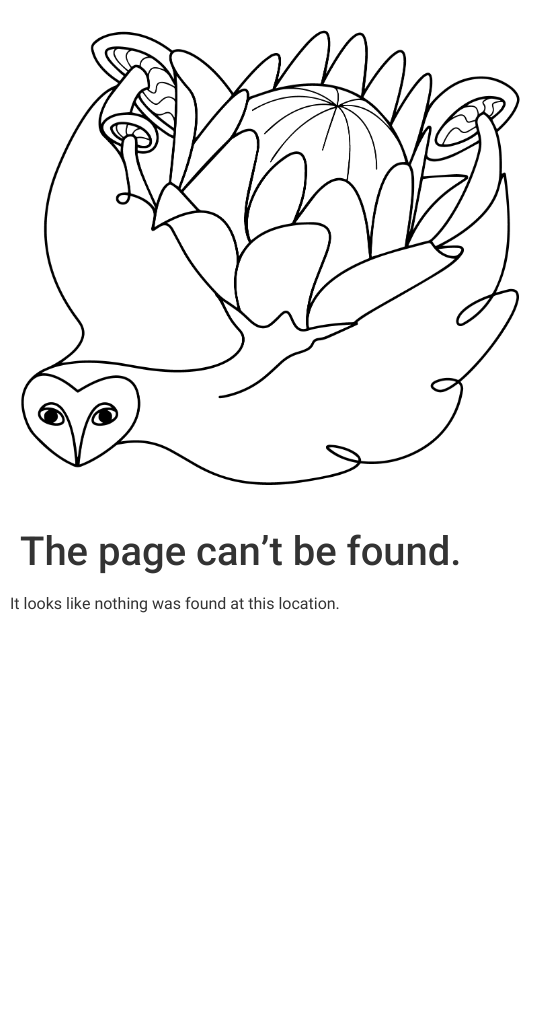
import math
import cairo

surface = cairo.ImageSurface(cairo.FORMAT_RGB24, 535, 1017)
ctx = cairo.Context(surface)
options = cairo.FontOptions()
options.set_hint_metrics(cairo.HINT_METRICS_OFF)
options.set_hint_style(cairo.HINT_STYLE_NONE)
ctx.set_font_options(options)
ctx.set_miter_limit(4)


def picture(path, x, y, w, h):
    ctx.save()
    ctx.set_source_surface(cairo.ImageSurface.create_from_png(path), x, y)
    ctx.rectangle(x, y, w, h)
    ctx.fill()
    ctx.restore()


ctx.set_source_rgb(1, 1, 1)
ctx.paint()
picture("img1.png", 21, 30, 499, 455)
ctx.select_font_face("Roboto Medium")
ctx.set_font_size(40)
ctx.set_source_rgb(0.2, 0.2, 0.2)
ctx.move_to(20, 565)
ctx.show_text("The page can’t be found.")
ctx.select_font_face("Roboto")
ctx.set_font_size(16)
ctx.move_to(10, 609)
ctx.show_text("It looks like nothing was found at this location.")
surface.write_to_png("page.png")
